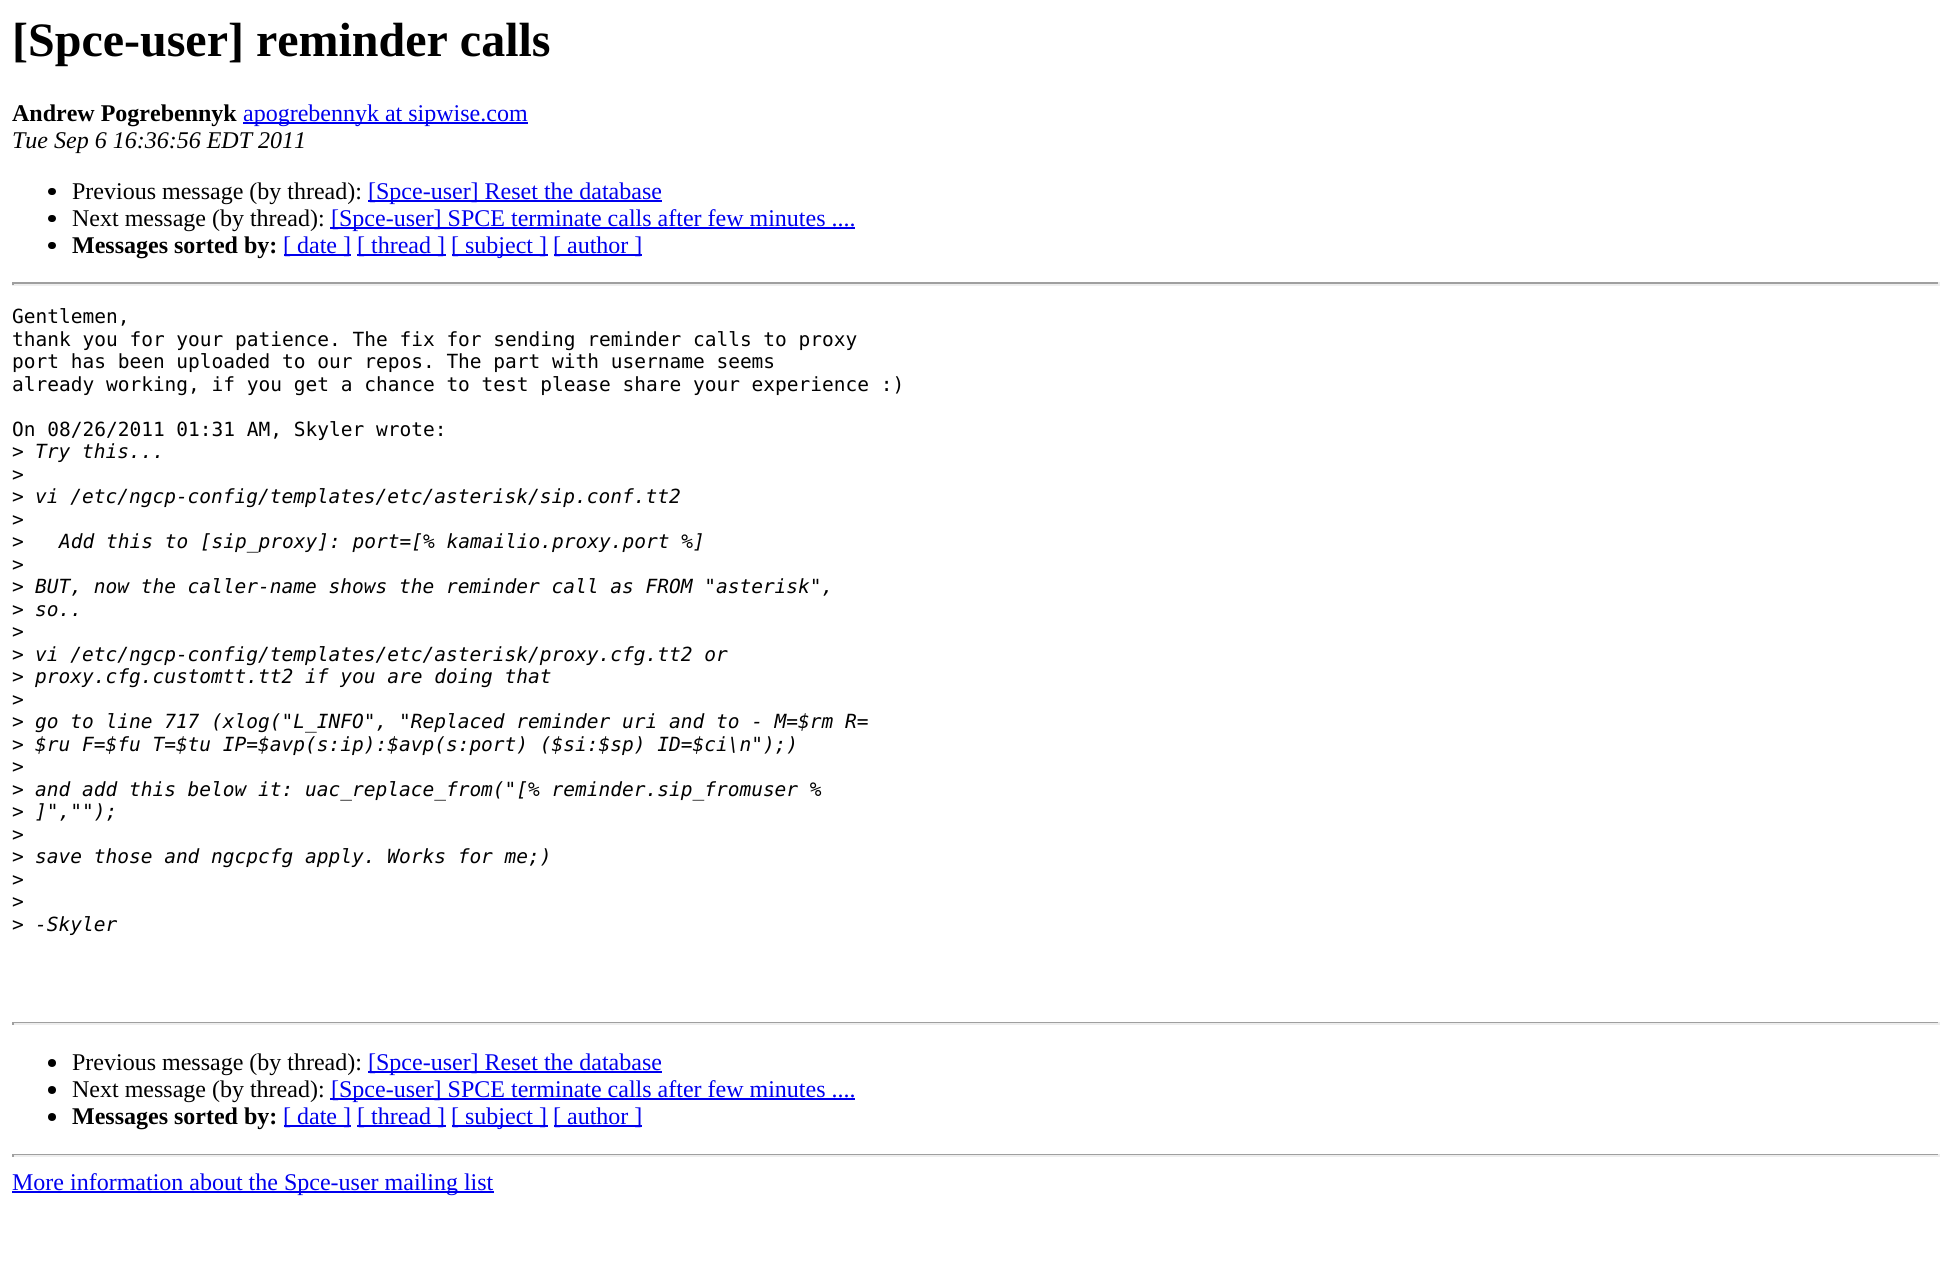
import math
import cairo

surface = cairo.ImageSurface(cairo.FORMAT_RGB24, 1951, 1285)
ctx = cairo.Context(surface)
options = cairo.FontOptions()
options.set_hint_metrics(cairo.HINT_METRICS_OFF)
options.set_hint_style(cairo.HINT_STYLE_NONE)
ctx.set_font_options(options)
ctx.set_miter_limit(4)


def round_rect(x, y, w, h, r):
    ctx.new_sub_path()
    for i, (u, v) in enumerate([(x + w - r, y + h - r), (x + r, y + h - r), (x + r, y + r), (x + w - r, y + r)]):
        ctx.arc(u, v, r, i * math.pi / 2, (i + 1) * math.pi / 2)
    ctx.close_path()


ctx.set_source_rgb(1, 1, 1)
ctx.paint()
ctx.select_font_face("Liberation Serif", cairo.FONT_SLANT_NORMAL, cairo.FONT_WEIGHT_BOLD)
ctx.set_font_size(48)
ctx.set_source_rgb(0, 0, 0)
ctx.move_to(12, 56)
ctx.show_text("[Spce-user] reminder calls")
ctx.set_font_size(24)
ctx.move_to(12, 121)
ctx.show_text("Andrew Pogrebennyk")
ctx.set_source_rgb(0, 0, 0.933)
ctx.rectangle(243, 122, 285, 2)
ctx.fill()
ctx.select_font_face("Liberation Serif")
ctx.move_to(243, 121)
ctx.show_text("apogrebennyk at sipwise.com")
ctx.select_font_face("Liberation Serif", cairo.FONT_SLANT_ITALIC)
ctx.set_source_rgb(0, 0, 0)
ctx.move_to(12, 148)
ctx.show_text("Tue Sep 6 16:36:56 EDT 2011")
round_rect(48, 188, 8, 7, 3.5)
ctx.fill()
ctx.select_font_face("Liberation Serif")
ctx.move_to(72, 199)
ctx.show_text("Previous message (by thread):")
ctx.set_source_rgb(0, 0, 0.933)
ctx.rectangle(368, 200, 294, 2)
ctx.fill()
ctx.move_to(368, 199)
ctx.show_text("[Spce-user] Reset the database")
ctx.set_source_rgb(0, 0, 0)
round_rect(48, 215, 8, 7, 3.5)
ctx.fill()
ctx.move_to(72, 226)
ctx.show_text("Next message (by thread):")
ctx.set_source_rgb(0, 0, 0.933)
ctx.rectangle(330, 227, 525, 2)
ctx.fill()
ctx.move_to(331, 226)
ctx.show_text("[Spce-user] SPCE terminate calls after few minutes ....")
ctx.set_source_rgb(0, 0, 0)
round_rect(48, 242, 8, 7, 3.5)
ctx.fill()
ctx.select_font_face("Liberation Serif", cairo.FONT_SLANT_NORMAL, cairo.FONT_WEIGHT_BOLD)
ctx.move_to(72, 253)
ctx.show_text("Messages sorted by:")
ctx.set_source_rgb(0, 0, 0.933)
ctx.rectangle(284, 254, 67, 2)
ctx.fill()
ctx.select_font_face("Liberation Serif")
ctx.move_to(283, 253)
ctx.show_text("[ date ]")
ctx.rectangle(357, 254, 89, 2)
ctx.fill()
ctx.move_to(357, 253)
ctx.show_text("[ thread ]")
ctx.rectangle(452, 254, 96, 2)
ctx.fill()
ctx.move_to(451, 253)
ctx.show_text("[ subject ]")
ctx.rectangle(554, 254, 88, 2)
ctx.fill()
ctx.move_to(553, 253)
ctx.show_text("[ author ]")
ctx.set_source_rgb(0.624, 0.624, 0.624)
ctx.rectangle(12, 282, 1928, 2)
ctx.fill()
ctx.set_source_rgb(0.933, 0.933, 0.933)
ctx.rectangle(1938, 282, 2, 3)
ctx.fill()
ctx.rectangle(12, 284, 1928, 2)
ctx.fill()
ctx.set_source_rgb(0.624, 0.624, 0.624)
ctx.rectangle(12, 282, 2, 3)
ctx.fill()
ctx.select_font_face("DejaVu Sans Mono")
ctx.set_font_size(19.5)
ctx.set_source_rgb(0, 0, 0)
ctx.move_to(12, 323)
ctx.show_text("Gentlemen,")
ctx.move_to(12, 346)
ctx.show_text("thank you for your patience. The fix for sending reminder calls to proxy")
ctx.move_to(12, 368)
ctx.show_text("port has been uploaded to our repos. The part with username seems")
ctx.move_to(12, 391)
ctx.show_text("already working, if you get a chance to test please share your experience :)")
ctx.move_to(12, 436)
ctx.show_text("On 08/26/2011 01:31 AM, Skyler wrote:")
ctx.move_to(12, 458)
ctx.show_text(">")
ctx.select_font_face("DejaVu Sans Mono", cairo.FONT_SLANT_ITALIC)
ctx.move_to(35, 458)
ctx.show_text("Try this...")
ctx.select_font_face("DejaVu Sans Mono")
ctx.move_to(12, 481)
ctx.show_text(">")
ctx.move_to(12, 503)
ctx.show_text(">")
ctx.select_font_face("DejaVu Sans Mono", cairo.FONT_SLANT_ITALIC)
ctx.move_to(35, 503)
ctx.show_text("vi /etc/ngcp-config/templates/etc/asterisk/sip.conf.tt2")
ctx.select_font_face("DejaVu Sans Mono")
ctx.move_to(12, 526)
ctx.show_text(">")
ctx.move_to(12, 548)
ctx.show_text(">")
ctx.select_font_face("DejaVu Sans Mono", cairo.FONT_SLANT_ITALIC)
ctx.move_to(59, 548)
ctx.show_text("Add this to [sip_proxy]: port=[% kamailio.proxy.port %]")
ctx.select_font_face("DejaVu Sans Mono")
ctx.move_to(12, 571)
ctx.show_text(">")
ctx.move_to(12, 593)
ctx.show_text(">")
ctx.select_font_face("DejaVu Sans Mono", cairo.FONT_SLANT_ITALIC)
ctx.move_to(35, 593)
ctx.show_text("BUT, now the caller-name shows the reminder call as FROM \"asterisk\",")
ctx.select_font_face("DejaVu Sans Mono")
ctx.move_to(12, 616)
ctx.show_text(">")
ctx.select_font_face("DejaVu Sans Mono", cairo.FONT_SLANT_ITALIC)
ctx.move_to(35, 616)
ctx.show_text("so..")
ctx.select_font_face("DejaVu Sans Mono")
ctx.move_to(12, 638)
ctx.show_text(">")
ctx.move_to(12, 661)
ctx.show_text(">")
ctx.select_font_face("DejaVu Sans Mono", cairo.FONT_SLANT_ITALIC)
ctx.move_to(35, 661)
ctx.show_text("vi /etc/ngcp-config/templates/etc/asterisk/proxy.cfg.tt2 or")
ctx.select_font_face("DejaVu Sans Mono")
ctx.move_to(12, 683)
ctx.show_text(">")
ctx.select_font_face("DejaVu Sans Mono", cairo.FONT_SLANT_ITALIC)
ctx.move_to(35, 683)
ctx.show_text("proxy.cfg.customtt.tt2 if you are doing that")
ctx.select_font_face("DejaVu Sans Mono")
ctx.move_to(12, 706)
ctx.show_text(">")
ctx.move_to(12, 728)
ctx.show_text(">")
ctx.select_font_face("DejaVu Sans Mono", cairo.FONT_SLANT_ITALIC)
ctx.move_to(35, 728)
ctx.show_text("go to line 717 (xlog(\"L_INFO\", \"Replaced reminder uri and to - M=$rm R=")
ctx.select_font_face("DejaVu Sans Mono")
ctx.move_to(12, 751)
ctx.show_text(">")
ctx.select_font_face("DejaVu Sans Mono", cairo.FONT_SLANT_ITALIC)
ctx.move_to(35, 751)
ctx.show_text("$ru F=$fu T=$tu IP=$avp(s:ip):$avp(s:port) ($si:$sp) ID=$ci\\n\");)")
ctx.select_font_face("DejaVu Sans Mono")
ctx.move_to(12, 773)
ctx.show_text(">")
ctx.move_to(12, 796)
ctx.show_text(">")
ctx.select_font_face("DejaVu Sans Mono", cairo.FONT_SLANT_ITALIC)
ctx.move_to(35, 796)
ctx.show_text("and add this below it: uac_replace_from(\"[% reminder.sip_fromuser %")
ctx.select_font_face("DejaVu Sans Mono")
ctx.move_to(12, 818)
ctx.show_text(">")
ctx.select_font_face("DejaVu Sans Mono", cairo.FONT_SLANT_ITALIC)
ctx.move_to(35, 818)
ctx.show_text("]\",\"\");")
ctx.select_font_face("DejaVu Sans Mono")
ctx.move_to(12, 841)
ctx.show_text(">")
ctx.move_to(12, 863)
ctx.show_text(">")
ctx.select_font_face("DejaVu Sans Mono", cairo.FONT_SLANT_ITALIC)
ctx.move_to(35, 863)
ctx.show_text("save those and ngcpcfg apply. Works for me;)")
ctx.select_font_face("DejaVu Sans Mono")
ctx.move_to(12, 886)
ctx.show_text(">")
ctx.move_to(12, 908)
ctx.show_text(">")
ctx.move_to(12, 931)
ctx.show_text(">")
ctx.select_font_face("DejaVu Sans Mono", cairo.FONT_SLANT_ITALIC)
ctx.move_to(35, 931)
ctx.show_text("-Skyler")
ctx.set_source_rgb(0.624, 0.624, 0.624)
ctx.rectangle(12, 1022, 1928, 1)
ctx.fill()
ctx.set_source_rgb(0.933, 0.933, 0.933)
ctx.rectangle(1938, 1022, 2, 3)
ctx.fill()
ctx.rectangle(12, 1023, 1928, 2)
ctx.fill()
ctx.set_source_rgb(0.624, 0.624, 0.624)
ctx.rectangle(12, 1022, 2, 3)
ctx.fill()
ctx.set_source_rgb(0, 0, 0)
ctx.arc(52, 1063, 4, 0, 2 * math.pi)
ctx.fill()
ctx.select_font_face("Liberation Serif")
ctx.set_font_size(24)
ctx.move_to(72, 1070)
ctx.show_text("Previous message (by thread):")
ctx.set_source_rgb(0, 0, 0.933)
ctx.rectangle(368, 1071, 294, 2)
ctx.fill()
ctx.move_to(368, 1070)
ctx.show_text("[Spce-user] Reset the database")
ctx.set_source_rgb(0, 0, 0)
ctx.new_path()
ctx.arc(52, 1090, 4, 0, 2 * math.pi)
ctx.fill()
ctx.move_to(72, 1097)
ctx.show_text("Next message (by thread):")
ctx.set_source_rgb(0, 0, 0.933)
ctx.rectangle(330, 1098, 525, 2)
ctx.fill()
ctx.move_to(331, 1097)
ctx.show_text("[Spce-user] SPCE terminate calls after few minutes ....")
ctx.set_source_rgb(0, 0, 0)
ctx.new_path()
ctx.arc(52, 1117, 4, 0, 2 * math.pi)
ctx.fill()
ctx.select_font_face("Liberation Serif", cairo.FONT_SLANT_NORMAL, cairo.FONT_WEIGHT_BOLD)
ctx.move_to(72, 1124)
ctx.show_text("Messages sorted by:")
ctx.set_source_rgb(0, 0, 0.933)
ctx.rectangle(284, 1125, 67, 2)
ctx.fill()
ctx.select_font_face("Liberation Serif")
ctx.move_to(283, 1124)
ctx.show_text("[ date ]")
ctx.rectangle(357, 1125, 89, 2)
ctx.fill()
ctx.move_to(357, 1124)
ctx.show_text("[ thread ]")
ctx.rectangle(452, 1125, 96, 2)
ctx.fill()
ctx.move_to(451, 1124)
ctx.show_text("[ subject ]")
ctx.rectangle(554, 1125, 88, 2)
ctx.fill()
ctx.move_to(553, 1124)
ctx.show_text("[ author ]")
ctx.set_source_rgb(0.624, 0.624, 0.624)
ctx.rectangle(12, 1154, 1928, 1)
ctx.fill()
ctx.set_source_rgb(0.933, 0.933, 0.933)
ctx.rectangle(1938, 1154, 2, 3)
ctx.fill()
ctx.rectangle(12, 1155, 1928, 2)
ctx.fill()
ctx.set_source_rgb(0.624, 0.624, 0.624)
ctx.rectangle(12, 1154, 2, 3)
ctx.fill()
ctx.set_source_rgb(0, 0, 0.933)
ctx.rectangle(12, 1191, 482, 2)
ctx.fill()
ctx.move_to(12, 1190)
ctx.show_text("More information about the Spce-user mailing list")
surface.write_to_png("page.png")
